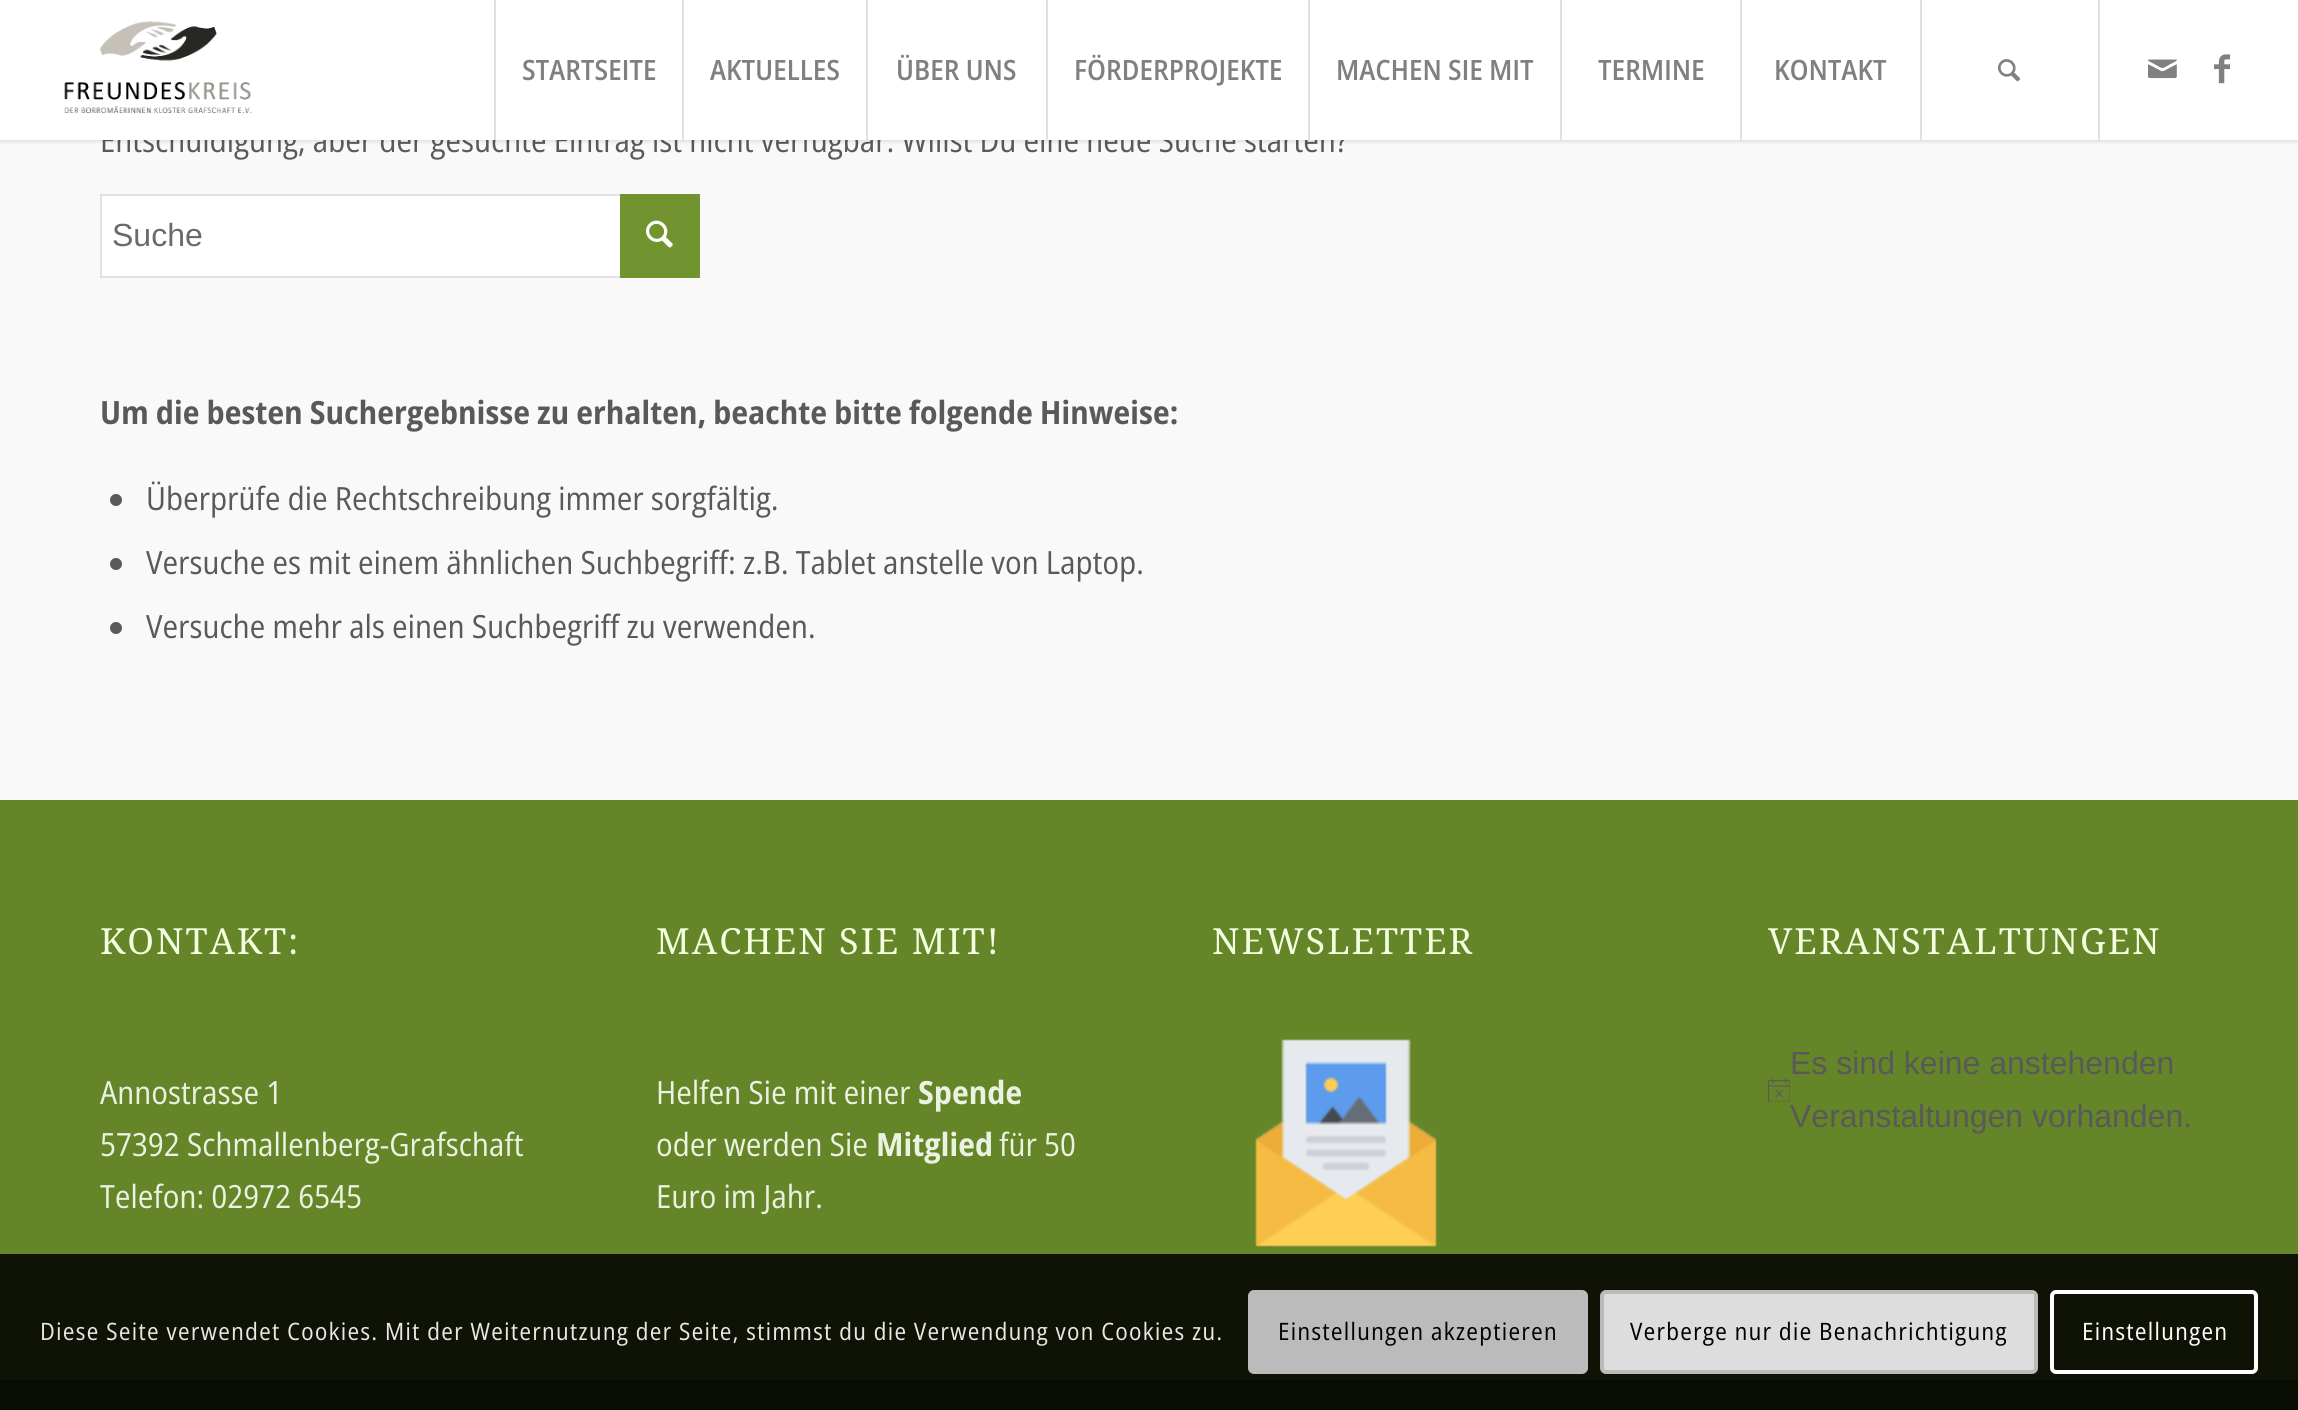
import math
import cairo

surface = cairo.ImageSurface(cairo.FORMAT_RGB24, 2298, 1410)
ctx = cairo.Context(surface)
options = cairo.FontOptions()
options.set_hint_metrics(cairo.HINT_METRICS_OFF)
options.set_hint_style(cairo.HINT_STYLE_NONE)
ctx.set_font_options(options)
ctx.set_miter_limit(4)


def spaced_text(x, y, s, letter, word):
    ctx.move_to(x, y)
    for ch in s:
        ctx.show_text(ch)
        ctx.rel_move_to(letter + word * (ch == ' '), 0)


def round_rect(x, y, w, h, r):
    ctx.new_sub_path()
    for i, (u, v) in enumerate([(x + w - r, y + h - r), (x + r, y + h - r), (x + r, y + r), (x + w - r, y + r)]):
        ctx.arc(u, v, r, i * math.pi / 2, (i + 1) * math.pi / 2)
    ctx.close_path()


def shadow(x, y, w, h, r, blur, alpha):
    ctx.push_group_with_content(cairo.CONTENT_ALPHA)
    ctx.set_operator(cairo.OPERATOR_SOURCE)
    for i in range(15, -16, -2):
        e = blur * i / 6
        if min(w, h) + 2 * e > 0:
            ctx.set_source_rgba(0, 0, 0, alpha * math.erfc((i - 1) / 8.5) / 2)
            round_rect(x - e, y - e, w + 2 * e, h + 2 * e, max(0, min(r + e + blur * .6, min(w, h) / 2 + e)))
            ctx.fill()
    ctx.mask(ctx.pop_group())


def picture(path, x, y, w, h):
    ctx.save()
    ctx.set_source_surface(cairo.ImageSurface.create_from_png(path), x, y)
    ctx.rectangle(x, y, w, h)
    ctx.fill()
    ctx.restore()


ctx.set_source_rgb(0.976, 0.976, 0.976)
ctx.paint()
picture("img12.png", 102, 140, 1243, 20)
ctx.set_source_rgb(0, 0, 0)
shadow(-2, -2, 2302, 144, 0, 2, 0.1)
ctx.set_source_rgb(1, 1, 1)
ctx.rectangle(0, 0, 2298, 140)
ctx.fill()
picture("img1.png", 64, 21, 188, 93)
ctx.set_source_rgb(0.882, 0.882, 0.882)
ctx.rectangle(494, 0, 2, 140)
ctx.fill()
picture("img2.png", 523, 59, 133, 22)
ctx.rectangle(682, 0, 2, 140)
ctx.fill()
picture("img3.png", 710, 59, 129, 22)
ctx.rectangle(866, 0, 2, 140)
ctx.fill()
picture("img4.png", 898, 54, 118, 27)
ctx.rectangle(1046, 0, 2, 140)
ctx.fill()
picture("img5.png", 1076, 54, 205, 32)
ctx.rectangle(1308, 0, 2, 140)
ctx.fill()
picture("img6.png", 1338, 59, 196, 22)
ctx.rectangle(1560, 0, 2, 140)
ctx.fill()
picture("img7.png", 1598, 60, 106, 20)
ctx.rectangle(1740, 0, 2, 140)
ctx.fill()
picture("img8.png", 1776, 59, 111, 22)
ctx.rectangle(2098, 0, 2, 140)
ctx.fill()
ctx.rectangle(1920, 0, 2, 140)
ctx.fill()
picture("img9.png", 1998, 59, 22, 23)
picture("img10.png", 2148, 59, 29, 20)
picture("img11.png", 2214, 54, 16, 30)
ctx.set_source_rgb(1, 1, 1)
ctx.rectangle(102, 196, 518, 80)
ctx.fill()
ctx.rectangle(101, 195, 598, 82)
ctx.set_source_rgb(0.882, 0.882, 0.882)
ctx.stroke()
ctx.select_font_face("Liberation Sans")
ctx.set_font_size(32)
ctx.set_source_rgb(0.416, 0.416, 0.416)
ctx.move_to(112, 246)
ctx.show_text("Suche")
ctx.set_source_rgb(0.443, 0.58, 0.188)
ctx.rectangle(620, 194, 80, 84)
ctx.fill()
picture("img13.png", 646, 220, 27, 28)
picture("img14.png", 102, 399, 1075, 33)
ctx.set_source_rgb(0.349, 0.349, 0.349)
ctx.arc(116, 500, 6, 0, 2 * math.pi)
ctx.fill()
picture("img15.png", 148, 481, 629, 37)
ctx.arc(116, 564, 6, 0, 2 * math.pi)
ctx.fill()
picture("img16.png", 146, 549, 996, 33)
ctx.arc(116, 628, 6, 0, 2 * math.pi)
ctx.fill()
picture("img17.png", 146, 613, 668, 33)
ctx.set_source_rgb(0.396, 0.522, 0.161)
ctx.rectangle(0, 800, 2298, 454)
ctx.fill()
ctx.set_source_rgb(0.059, 0.078, 0.024)
ctx.rectangle(0, 1254, 2298, 126)
ctx.fill()
ctx.select_font_face("Droid Serif")
ctx.set_font_size(36)
ctx.set_source_rgb(0.953, 1, 0.871)
spaced_text(100, 954, "KONTAKT:", 2, 0)
picture("img18.png", 100, 1081, 177, 24)
picture("img19.png", 101, 1131, 422, 33)
picture("img20.png", 100, 1183, 261, 26)
spaced_text(656, 954, "MACHEN SIE MIT!", 2, 0)
picture("img21.png", 658, 1079, 253, 26)
picture("img22.png", 919, 1079, 102, 33)
picture("img23.png", 657, 1131, 210, 26)
picture("img24.png", 878, 1131, 113, 33)
picture("img25.png", 999, 1131, 76, 26)
picture("img26.png", 658, 1183, 163, 32)
spaced_text(1212, 954, "NEWSLETTER", 2, 0)
picture("img27.png", 1255, 1039, 182, 208)
spaced_text(1768, 954, "VERANSTALTUNGEN", 2, 0)
picture("img28.png", 1768, 1078, 22, 24)
ctx.select_font_face("Liberation Sans")
ctx.set_font_size(32)
ctx.set_source_rgb(0.349, 0.349, 0.349)
ctx.move_to(1790, 1074)
ctx.show_text("Es sind keine anstehenden")
ctx.move_to(1790, 1127)
ctx.show_text("Veranstaltungen vorhanden.")
ctx.set_source_rgb(0.039, 0.051, 0.016)
ctx.rectangle(0, 1380, 2298, 30)
ctx.fill()
picture("img29.png", 42, 1321, 1179, 25)
ctx.set_source_rgb(0.733, 0.733, 0.733)
round_rect(1250, 1292, 336, 80, 4)
ctx.fill_preserve()
ctx.set_line_width(4)
ctx.stroke()
picture("img30.png", 1280, 1321, 275, 25)
ctx.set_source_rgb(0.867, 0.867, 0.867)
round_rect(1602, 1292, 434, 80, 4)
ctx.fill_preserve()
ctx.set_source_rgb(0.733, 0.733, 0.733)
ctx.stroke()
picture("img31.png", 1630, 1321, 377, 25)
round_rect(2052, 1292, 204, 80, 4)
ctx.set_source_rgb(1, 1, 1)
ctx.stroke()
picture("img32.png", 2084, 1321, 142, 25)
surface.write_to_png("page.png")
